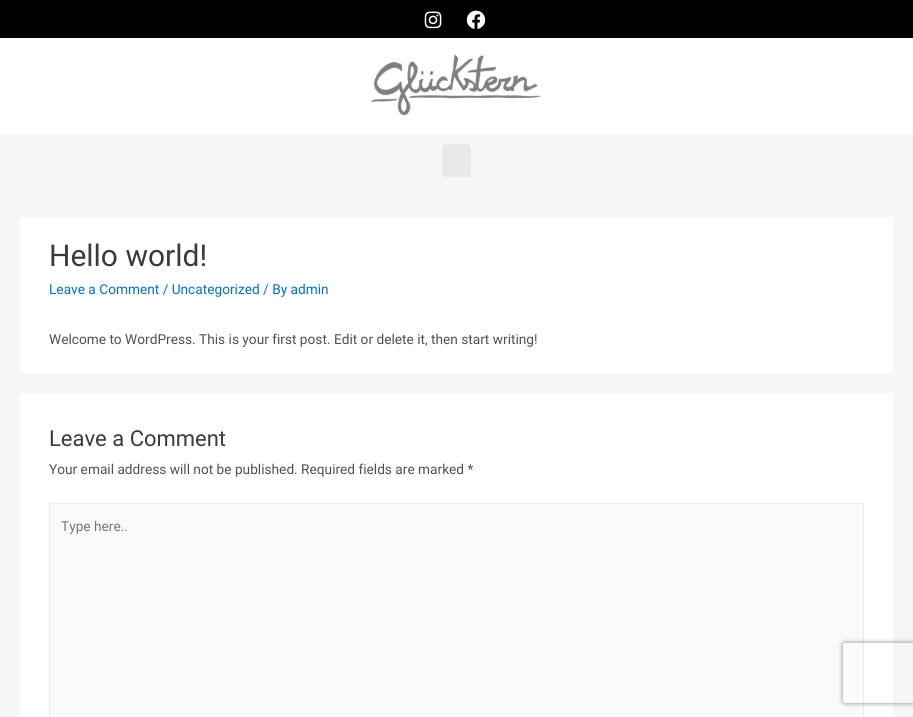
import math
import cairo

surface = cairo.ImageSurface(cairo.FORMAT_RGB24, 913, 717)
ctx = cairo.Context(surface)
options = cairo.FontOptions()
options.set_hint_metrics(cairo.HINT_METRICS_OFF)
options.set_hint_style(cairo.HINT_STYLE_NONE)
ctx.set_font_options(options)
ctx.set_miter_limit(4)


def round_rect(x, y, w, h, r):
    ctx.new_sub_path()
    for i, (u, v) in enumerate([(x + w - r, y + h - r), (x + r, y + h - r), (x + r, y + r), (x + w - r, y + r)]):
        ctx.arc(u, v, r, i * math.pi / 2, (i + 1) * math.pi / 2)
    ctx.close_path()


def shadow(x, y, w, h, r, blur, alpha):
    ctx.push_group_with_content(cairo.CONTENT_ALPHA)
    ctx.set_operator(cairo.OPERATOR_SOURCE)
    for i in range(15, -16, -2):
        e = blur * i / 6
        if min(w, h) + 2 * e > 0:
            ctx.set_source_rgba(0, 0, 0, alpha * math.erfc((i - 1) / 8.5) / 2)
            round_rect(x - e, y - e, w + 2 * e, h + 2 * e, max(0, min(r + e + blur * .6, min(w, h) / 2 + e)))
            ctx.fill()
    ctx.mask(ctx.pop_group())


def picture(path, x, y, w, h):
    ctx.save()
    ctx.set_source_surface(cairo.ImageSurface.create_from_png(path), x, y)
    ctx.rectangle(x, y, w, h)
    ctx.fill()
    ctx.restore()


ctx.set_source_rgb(0.961, 0.961, 0.961)
ctx.paint()
ctx.set_source_rgb(0, 0, 0)
ctx.rectangle(0, 0, 913, 38)
ctx.fill()
picture("img1.png", 424, 11, 18, 18)
picture("img2.png", 466, 10, 20, 19)
ctx.set_source_rgb(1, 1, 1)
ctx.rectangle(0, 38, 913, 96)
ctx.fill()
picture("img3.png", 370, 54, 171, 62)
ctx.set_source_rgb(0.914, 0.914, 0.914)
round_rect(442, 144, 29, 33, 3)
ctx.fill()
ctx.set_source_rgb(1, 1, 1)
ctx.rectangle(20, 217, 873, 156)
ctx.fill()
ctx.select_font_face("Roboto")
ctx.set_font_size(30)
ctx.set_source_rgb(0.227, 0.227, 0.227)
ctx.move_to(49, 266)
ctx.show_text("Hello world!")
ctx.set_font_size(13.7)
ctx.set_source_rgb(0.004, 0.439, 0.725)
ctx.move_to(49, 294)
ctx.show_text("Leave a Comment / Uncategorized / By admin")
ctx.set_source_rgb(0.294, 0.31, 0.345)
ctx.move_to(49, 344)
ctx.show_text("Welcome to WordPress. This is your first post. Edit or delete it, then start writing!")
ctx.set_source_rgb(1, 1, 1)
ctx.rectangle(20, 393, 873, 324)
ctx.fill()
ctx.set_font_size(22)
ctx.set_source_rgb(0.227, 0.227, 0.227)
ctx.move_to(49, 446)
ctx.show_text("Leave a Comment")
ctx.set_font_size(13.7)
ctx.set_source_rgb(0.294, 0.31, 0.345)
ctx.move_to(49, 474)
ctx.show_text("Your email address will not be published. Required fields are marked *")
ctx.set_source_rgb(0.98, 0.98, 0.98)
ctx.rectangle(49.5, 503.5, 814, 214)
ctx.fill_preserve()
ctx.set_source_rgb(0.918, 0.918, 0.918)
ctx.set_line_width(1)
ctx.stroke()
ctx.set_source_rgb(0.459, 0.459, 0.459)
ctx.move_to(61, 531)
ctx.show_text("Type here..")
ctx.save()
ctx.set_fill_rule(cairo.FILL_RULE_EVEN_ODD)
ctx.new_path()
ctx.move_to(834, 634)
ctx.line_to(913, 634)
ctx.line_to(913, 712)
ctx.line_to(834, 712)
ctx.close_path()
ctx.move_to(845, 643)
ctx.line_to(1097, 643)
ctx.curve_to(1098, 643, 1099, 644, 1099, 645)
ctx.line_to(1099, 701)
ctx.curve_to(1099, 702, 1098, 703, 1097, 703)
ctx.line_to(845, 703)
ctx.curve_to(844, 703, 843, 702, 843, 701)
ctx.line_to(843, 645)
ctx.curve_to(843, 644, 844, 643, 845, 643)
ctx.close_path()
ctx.clip()
ctx.set_source_rgb(0.502, 0.502, 0.502)
shadow(843, 643, 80, 60, 2, 2.5, 1)
ctx.restore()
surface.write_to_png("page.png")
